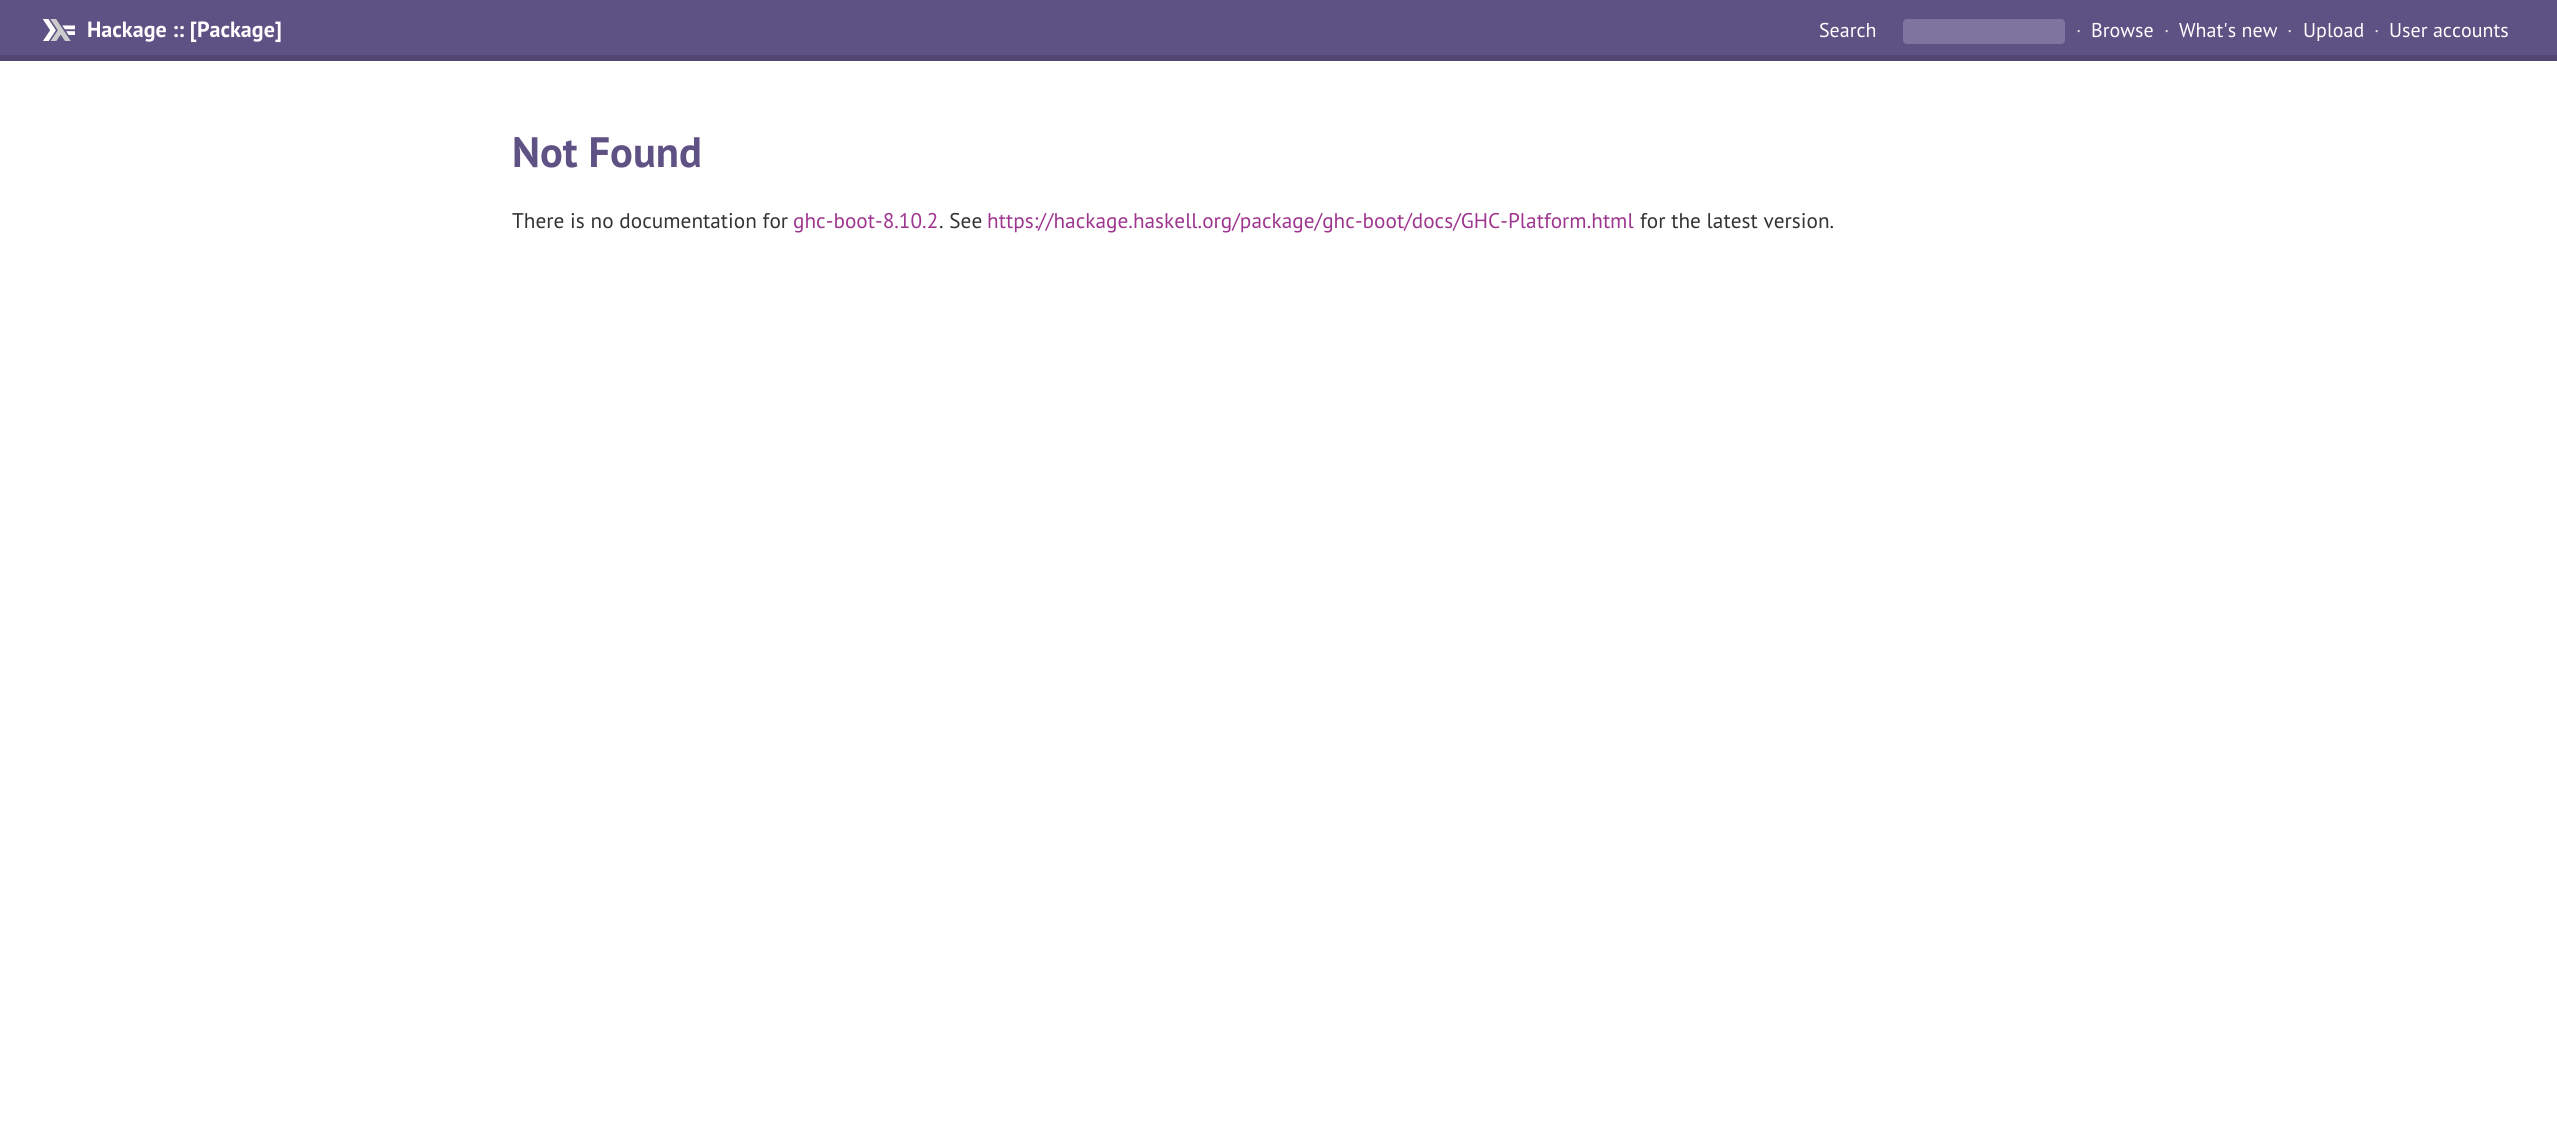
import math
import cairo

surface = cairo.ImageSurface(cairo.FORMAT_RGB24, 2557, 1135)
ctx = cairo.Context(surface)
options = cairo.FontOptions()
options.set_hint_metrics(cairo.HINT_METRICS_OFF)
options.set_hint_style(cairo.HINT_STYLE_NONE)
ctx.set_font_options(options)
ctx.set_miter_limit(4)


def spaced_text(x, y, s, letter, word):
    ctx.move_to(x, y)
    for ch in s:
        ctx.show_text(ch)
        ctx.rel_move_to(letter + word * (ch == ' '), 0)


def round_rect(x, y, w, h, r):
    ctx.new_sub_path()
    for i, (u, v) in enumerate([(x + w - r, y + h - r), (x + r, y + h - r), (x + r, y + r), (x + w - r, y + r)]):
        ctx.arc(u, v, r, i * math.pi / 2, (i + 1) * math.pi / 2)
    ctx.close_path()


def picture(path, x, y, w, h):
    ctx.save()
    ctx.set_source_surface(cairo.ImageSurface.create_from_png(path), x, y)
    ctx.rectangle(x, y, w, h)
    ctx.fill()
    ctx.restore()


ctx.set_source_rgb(1, 1, 1)
ctx.paint()
ctx.set_source_rgb(0.369, 0.318, 0.518)
ctx.rectangle(0, 0, 2557, 55)
ctx.fill()
ctx.set_source_rgb(0.322, 0.275, 0.451)
ctx.rectangle(0, 55, 2557, 6)
ctx.fill()
picture("img1.png", 42, 19, 33, 22)
ctx.select_font_face("PT Sans", cairo.FONT_SLANT_NORMAL, cairo.FONT_WEIGHT_BOLD)
ctx.set_font_size(22)
ctx.set_source_rgb(1, 1, 1)
spaced_text(87, 37, "Hackage :: [Package]", 0.03, 0)
ctx.select_font_face("PT Sans")
ctx.set_font_size(20)
ctx.move_to(1819, 37)
ctx.show_text("Search")
ctx.set_source_rgb(0.494, 0.455, 0.616)
round_rect(1903, 19, 162, 25, 4)
ctx.fill()
ctx.set_source_rgb(0.867, 0.867, 0.867)
spaced_text(2076, 37, "·", 0.03, 0)
ctx.set_source_rgb(1, 1, 1)
spaced_text(2091, 37, "Browse", 0.03, 0)
ctx.set_source_rgb(0.867, 0.867, 0.867)
spaced_text(2164, 37, "·", 0.03, 0)
ctx.set_source_rgb(1, 1, 1)
spaced_text(2179, 37, "What's new", 0.03, 0)
ctx.set_source_rgb(0.867, 0.867, 0.867)
spaced_text(2287, 37, "·", 0.03, 0)
ctx.set_source_rgb(1, 1, 1)
spaced_text(2303, 37, "Upload", 0.03, 0)
ctx.set_source_rgb(0.867, 0.867, 0.867)
spaced_text(2374, 37, "·", 0.03, 0)
ctx.set_source_rgb(1, 1, 1)
spaced_text(2389, 37, "User accounts", 0.03, 0)
ctx.select_font_face("PT Sans", cairo.FONT_SLANT_NORMAL, cairo.FONT_WEIGHT_BOLD)
ctx.set_font_size(42.5)
ctx.set_source_rgb(0.369, 0.318, 0.518)
spaced_text(512, 167, "Not Found", 0.03, 0)
ctx.select_font_face("PT Sans")
ctx.set_font_size(21.25)
ctx.set_source_rgb(0.2, 0.2, 0.2)
spaced_text(512, 228, "There is no documentation for", 0.03, 0)
ctx.set_source_rgb(0.62, 0.208, 0.561)
spaced_text(793, 228, "ghc-boot-8.10.2", 0.03, 0)
ctx.set_source_rgb(0.2, 0.2, 0.2)
spaced_text(939, 228, ". See", 0.03, 0)
ctx.set_source_rgb(0.62, 0.208, 0.561)
spaced_text(987, 228, "https://hackage.haskell.org/package/ghc-boot/docs/GHC-Platform.html", 0.03, 0)
ctx.set_source_rgb(0.2, 0.2, 0.2)
spaced_text(1640, 228, "for the latest version.", 0.03, 0)
surface.write_to_png("page.png")
